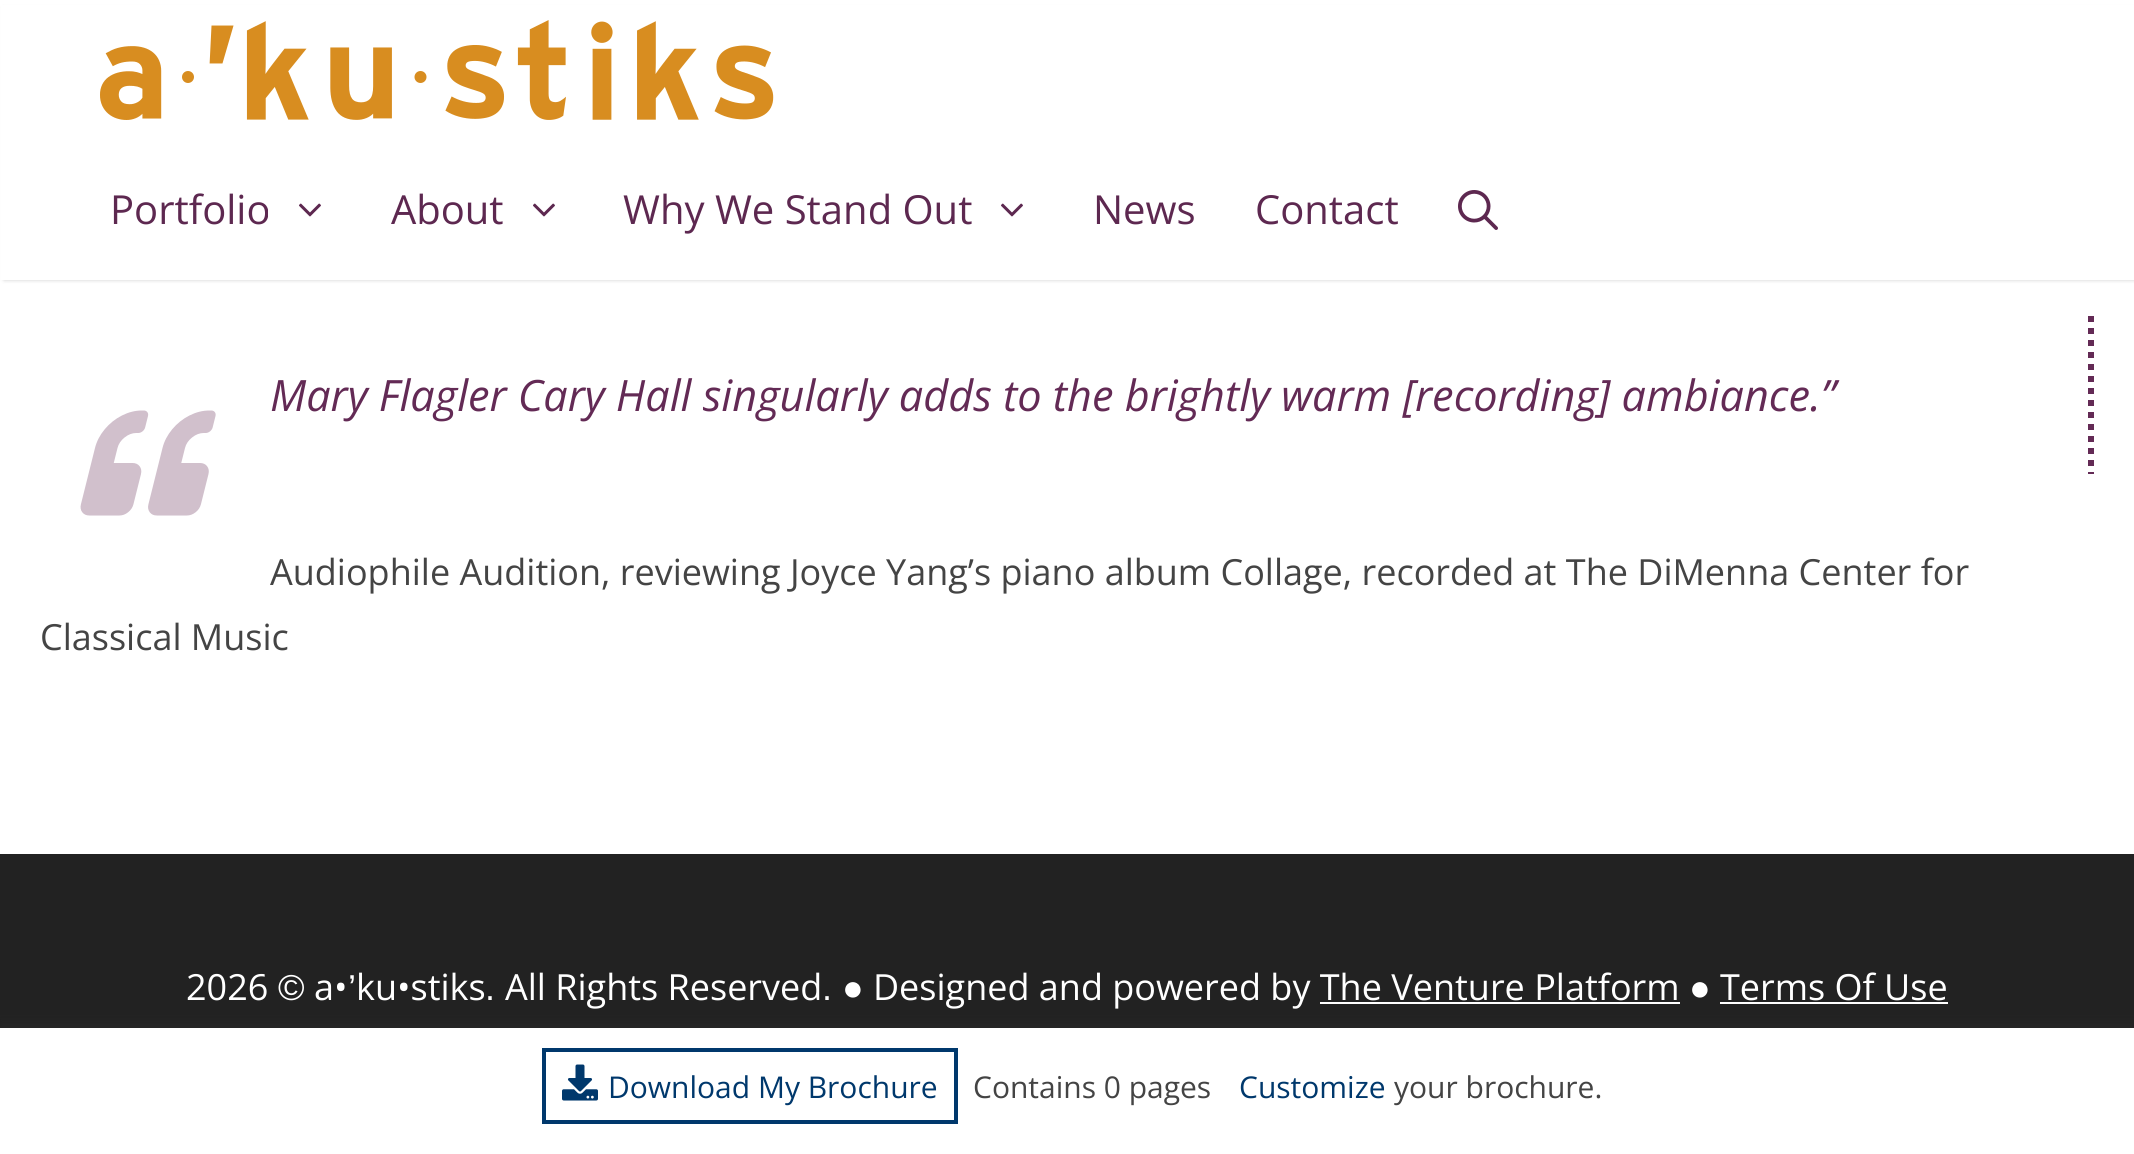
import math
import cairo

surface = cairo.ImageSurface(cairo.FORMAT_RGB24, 2134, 1154)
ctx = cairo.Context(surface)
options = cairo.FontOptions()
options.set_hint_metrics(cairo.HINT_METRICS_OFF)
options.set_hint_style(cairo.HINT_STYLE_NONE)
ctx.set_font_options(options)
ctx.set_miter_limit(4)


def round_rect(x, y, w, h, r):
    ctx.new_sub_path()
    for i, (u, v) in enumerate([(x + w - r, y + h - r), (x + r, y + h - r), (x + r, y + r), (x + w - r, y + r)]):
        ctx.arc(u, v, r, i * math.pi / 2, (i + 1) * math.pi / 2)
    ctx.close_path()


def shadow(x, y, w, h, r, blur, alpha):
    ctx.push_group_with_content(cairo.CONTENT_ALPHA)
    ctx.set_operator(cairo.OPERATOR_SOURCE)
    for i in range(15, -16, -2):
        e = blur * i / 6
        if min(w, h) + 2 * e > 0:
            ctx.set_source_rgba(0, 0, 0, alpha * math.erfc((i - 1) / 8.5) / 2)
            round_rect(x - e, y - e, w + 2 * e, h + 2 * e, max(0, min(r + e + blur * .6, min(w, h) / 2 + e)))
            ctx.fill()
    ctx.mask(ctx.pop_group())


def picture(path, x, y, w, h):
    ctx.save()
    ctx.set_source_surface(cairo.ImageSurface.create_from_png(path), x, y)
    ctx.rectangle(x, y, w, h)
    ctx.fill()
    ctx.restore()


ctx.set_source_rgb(1, 1, 1)
ctx.paint()
ctx.set_source_rgb(0, 0, 0)
shadow(4, 8, 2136, 272, 0, 2, 0.2)
ctx.set_source_rgb(1, 1, 1)
ctx.rectangle(1, 5, 2133, 275)
ctx.fill()
picture("img1.png", 100, 20, 674, 100)
ctx.select_font_face("Open Sans")
ctx.set_font_size(40)
ctx.set_source_rgb(0.365, 0.157, 0.314)
ctx.move_to(110, 224)
ctx.show_text("Portfolio")
picture("img2.png", 299, 203, 22, 14)
ctx.move_to(391, 224)
ctx.show_text("About")
picture("img2.png", 533, 203, 22, 14)
ctx.move_to(623, 224)
ctx.show_text("Why We Stand Out")
picture("img2.png", 1001, 203, 22, 14)
ctx.move_to(1093, 224)
ctx.show_text("News")
ctx.move_to(1255, 224)
ctx.show_text("Contact")
picture("img3.png", 1458, 190, 40, 40)
ctx.new_path()
ctx.move_to(2091, 316)
ctx.line_to(2091, 474)
ctx.set_source_rgb(0.388, 0.165, 0.333)
ctx.set_line_width(6)
ctx.set_dash([6, 6])
ctx.stroke()
ctx.select_font_face("Open Sans", cairo.FONT_SLANT_ITALIC)
ctx.set_font_size(43.2)
ctx.move_to(270, 411)
ctx.show_text("Mary Flagler Cary Hall singularly adds to the brightly warm [recording] ambiance.”")
picture("img4.png", 80, 410, 136, 106)
ctx.select_font_face("Open Sans")
ctx.set_font_size(36)
ctx.set_source_rgb(0.267, 0.267, 0.267)
ctx.move_to(270, 585)
ctx.show_text("Audiophile Audition, reviewing Joyce Yang’s piano album Collage, recorded at The DiMenna Center for")
ctx.move_to(40, 650)
ctx.show_text("Classical Music")
ctx.set_source_rgb(0.133, 0.133, 0.133)
ctx.rectangle(0, 854, 2134, 174)
ctx.fill()
ctx.set_source_rgb(1, 1, 1)
ctx.move_to(186, 1000)
ctx.show_text("2026")
ctx.select_font_face("Liberation Sans")
ctx.move_to(278, 1000)
ctx.show_text("©")
ctx.select_font_face("Open Sans")
ctx.move_to(314, 1000)
ctx.show_text("a•")
ctx.select_font_face("Liberation Sans")
ctx.move_to(348, 1000)
ctx.show_text("’")
ctx.select_font_face("Open Sans")
ctx.move_to(356, 1000)
ctx.show_text("ku•stiks")
ctx.select_font_face("Liberation Sans")
ctx.move_to(485, 1000)
ctx.show_text(".")
ctx.select_font_face("Open Sans")
ctx.move_to(505, 1000)
ctx.show_text("All Rights Reserved")
ctx.select_font_face("Liberation Sans")
ctx.move_to(822, 1000)
ctx.show_text(". ●")
ctx.select_font_face("Open Sans")
ctx.move_to(873, 1000)
ctx.show_text("Designed and powered by The Venture Platform")
ctx.select_font_face("Liberation Sans")
ctx.move_to(1689, 1000)
ctx.show_text("●")
ctx.select_font_face("Open Sans")
ctx.move_to(1720, 1000)
ctx.show_text("Terms Of Use")
ctx.rectangle(1720, 1002, 228, 2)
ctx.fill()
ctx.rectangle(1320, 1002, 360, 2)
ctx.fill()
ctx.set_source_rgb(0.196, 0.196, 0.196)
shadow(0, 1024, 2134, 126, 0, 5, 0.3)
ctx.set_source_rgb(1, 1, 1)
ctx.rectangle(0, 1028, 2134, 126)
ctx.fill()
ctx.rectangle(544, 1050, 412, 72)
ctx.set_source_rgb(0, 0.22, 0.424)
ctx.set_line_width(4)
ctx.set_dash([])
ctx.stroke()
picture("img5.png", 562, 1064, 36, 37)
ctx.set_font_size(30)
ctx.move_to(608, 1098)
ctx.show_text("Download My Brochure")
ctx.set_source_rgb(0.267, 0.267, 0.267)
ctx.move_to(973, 1098)
ctx.show_text("Contains 0 pages")
ctx.set_source_rgb(0, 0.22, 0.424)
ctx.move_to(1239, 1098)
ctx.show_text("Customize")
ctx.set_source_rgb(0.267, 0.267, 0.267)
ctx.move_to(1394, 1098)
ctx.show_text("your brochure.")
surface.write_to_png("page.png")
